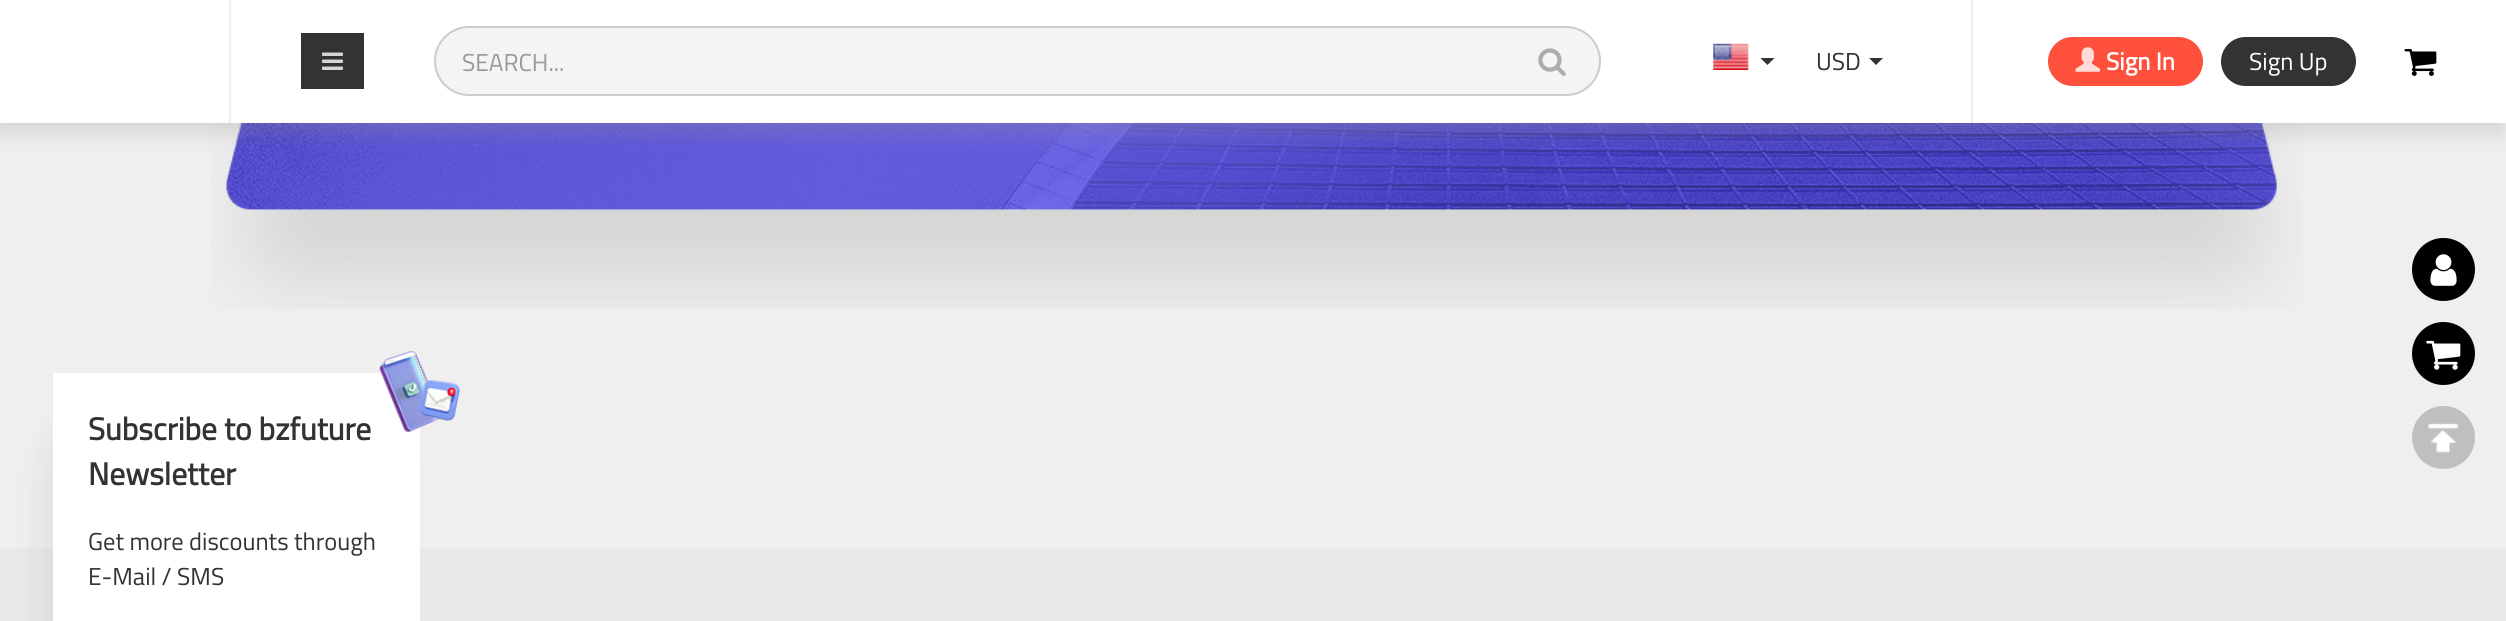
import math
import cairo

surface = cairo.ImageSurface(cairo.FORMAT_RGB24, 2506, 621)
ctx = cairo.Context(surface)
options = cairo.FontOptions()
options.set_hint_metrics(cairo.HINT_METRICS_OFF)
options.set_hint_style(cairo.HINT_STYLE_NONE)
ctx.set_font_options(options)
ctx.set_miter_limit(4)


def round_rect(x, y, w, h, r):
    ctx.new_sub_path()
    for i, (u, v) in enumerate([(x + w - r, y + h - r), (x + r, y + h - r), (x + r, y + r), (x + w - r, y + r)]):
        ctx.arc(u, v, r, i * math.pi / 2, (i + 1) * math.pi / 2)
    ctx.close_path()


def shadow(x, y, w, h, r, blur, alpha):
    ctx.push_group_with_content(cairo.CONTENT_ALPHA)
    ctx.set_operator(cairo.OPERATOR_SOURCE)
    for i in range(15, -16, -2):
        e = blur * i / 6
        if min(w, h) + 2 * e > 0:
            ctx.set_source_rgba(0, 0, 0, alpha * math.erfc((i - 1) / 8.5) / 2)
            round_rect(x - e, y - e, w + 2 * e, h + 2 * e, max(0, min(r + e + blur * .6, min(w, h) / 2 + e)))
            ctx.fill()
    ctx.mask(ctx.pop_group())


def picture(path, x, y, w, h):
    ctx.save()
    ctx.set_source_surface(cairo.ImageSurface.create_from_png(path), x, y)
    ctx.rectangle(x, y, w, h)
    ctx.fill()
    ctx.restore()


ctx.set_source_rgb(0.937, 0.937, 0.937)
ctx.paint()
picture("img6.png", 210, 123, 2093, 186)
ctx.set_source_rgb(0.592, 0.592, 0.592)
shadow(-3, 9, 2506, 122, 0, 11.5, 0.35)
ctx.set_source_rgb(1, 1, 1)
ctx.rectangle(0, 0, 2506, 123)
ctx.fill()
ctx.set_source_rgb(0.933, 0.933, 0.933)
ctx.rectangle(229, 0, 2, 123)
ctx.fill()
ctx.set_source_rgb(0.2, 0.2, 0.2)
ctx.rectangle(301, 33, 63, 56)
ctx.fill()
picture("img1.png", 322, 52, 21, 18)
ctx.set_source_rgb(0.957, 0.957, 0.957)
round_rect(435, 27, 1165, 68, 34)
ctx.fill_preserve()
ctx.set_source_rgb(0.8, 0.8, 0.8)
ctx.stroke()
ctx.select_font_face("Titillium Web")
ctx.set_font_size(24.5)
ctx.set_source_rgb(0.6, 0.6, 0.6)
ctx.move_to(462, 71)
ctx.show_text("SEARCH...")
picture("img2.png", 1538, 48, 28, 28)
picture("img3.png", 1713, 43, 36, 27)
ctx.set_source_rgb(0.2, 0.2, 0.2)
ctx.new_path()
ctx.move_to(1760.5, 58)
ctx.line_to(1774.5, 58)
ctx.line_to(1767.5, 65)
ctx.close_path()
ctx.fill()
ctx.move_to(1816, 70)
ctx.show_text("USD")
ctx.new_path()
ctx.move_to(1869, 58)
ctx.line_to(1883, 58)
ctx.line_to(1876, 65)
ctx.close_path()
ctx.fill()
ctx.set_source_rgb(0.933, 0.933, 0.933)
ctx.rectangle(1971, 0, 2, 123)
ctx.fill()
ctx.set_source_rgb(1, 0.314, 0.243)
round_rect(2048, 37, 155, 49, 24.5)
ctx.fill()
picture("img4.png", 2075, 47, 25, 25)
ctx.select_font_face("Titillium Web", cairo.FONT_SLANT_NORMAL, cairo.FONT_WEIGHT_BOLD)
ctx.set_source_rgb(1, 1, 1)
ctx.move_to(2106, 70)
ctx.show_text("Sign In")
ctx.set_source_rgb(0.2, 0.2, 0.2)
round_rect(2221, 37, 135, 49, 24.5)
ctx.fill()
ctx.select_font_face("Titillium Web")
ctx.set_source_rgb(1, 1, 1)
ctx.move_to(2249, 70)
ctx.show_text("Sign Up")
picture("img5.png", 2404, 49, 33, 27)
ctx.set_source_rgb(0, 0, 0)
ctx.arc(2443.5, 269.5, 31.5, 0, 2 * math.pi)
ctx.fill()
picture("img7.png", 2430, 254, 27, 32)
ctx.arc(2443.5, 353.5, 31.5, 0, 2 * math.pi)
ctx.fill()
picture("img8.png", 2426, 340, 35, 30)
ctx.set_source_rgb(0.749, 0.749, 0.749)
ctx.arc(2443.5, 437.5, 31.5, 0, 2 * math.pi)
ctx.fill()
picture("img9.png", 2428, 423, 31, 30)
ctx.set_source_rgb(0.914, 0.914, 0.914)
ctx.rectangle(0, 548, 2506, 73)
ctx.fill()
ctx.set_source_rgb(0.133, 0.098, 0.098)
shadow(37, 394, 367, 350, 88, 13, 0.06)
ctx.set_source_rgb(1, 1, 1)
ctx.rectangle(53, 373, 367, 248)
ctx.fill()
picture("img10.png", 379, 351, 82, 81)
ctx.select_font_face("Titillium Web", cairo.FONT_SLANT_NORMAL, cairo.FONT_WEIGHT_BOLD)
ctx.set_font_size(31.5)
ctx.set_source_rgb(0.2, 0.2, 0.2)
ctx.move_to(88, 440)
ctx.show_text("Subscribe to bzfuture")
ctx.move_to(88, 485)
ctx.show_text("Newsletter")
ctx.select_font_face("Titillium Web")
ctx.set_font_size(24.5)
ctx.move_to(88, 550)
ctx.show_text("Get more discounts through")
ctx.move_to(88, 585)
ctx.show_text("E-Mail / SMS")
surface.write_to_png("page.png")
